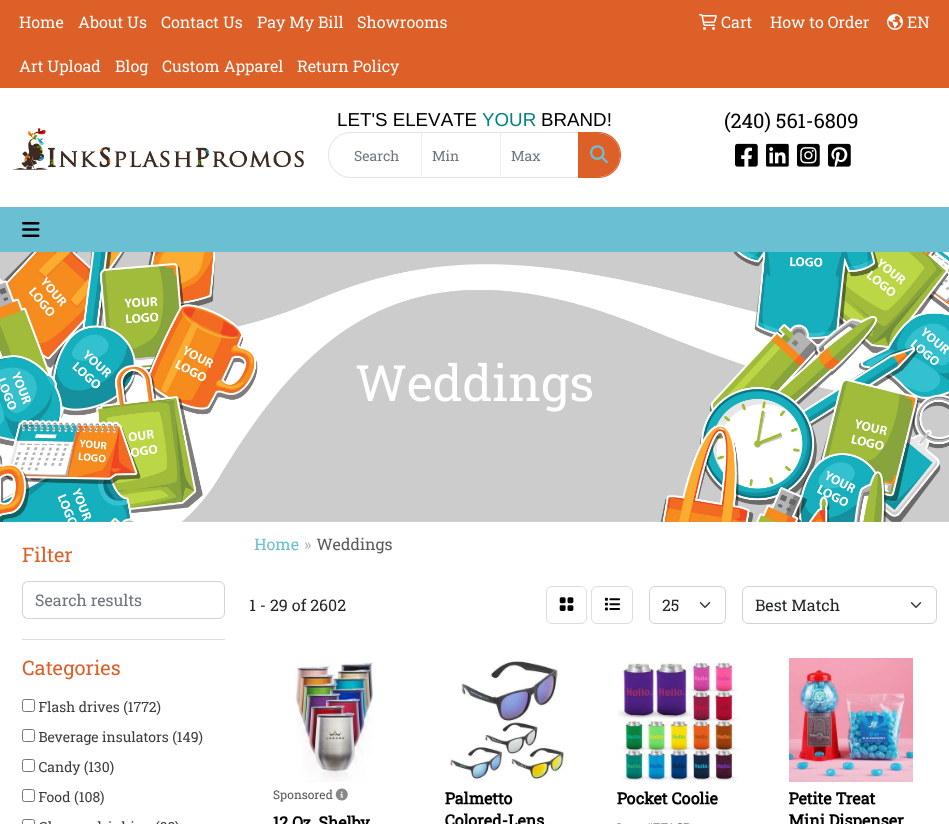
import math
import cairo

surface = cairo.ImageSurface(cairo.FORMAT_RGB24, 949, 824)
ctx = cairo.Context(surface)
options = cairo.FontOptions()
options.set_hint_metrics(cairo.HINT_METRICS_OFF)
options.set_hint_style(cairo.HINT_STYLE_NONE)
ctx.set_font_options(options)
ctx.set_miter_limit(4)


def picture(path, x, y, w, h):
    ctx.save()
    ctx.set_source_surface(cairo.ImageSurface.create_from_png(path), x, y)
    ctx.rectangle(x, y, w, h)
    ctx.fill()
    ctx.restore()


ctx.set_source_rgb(1, 1, 1)
ctx.paint()
ctx.set_source_rgb(0.863, 0.376, 0.157)
ctx.rectangle(0, 0, 949, 88)
ctx.fill()
ctx.select_font_face("Roboto Slab")
ctx.set_font_size(16)
ctx.set_source_rgb(1, 1, 1)
ctx.move_to(19, 28)
ctx.show_text("Home")
ctx.move_to(78, 28)
ctx.show_text("About Us")
ctx.move_to(161, 28)
ctx.show_text("Contact Us")
ctx.move_to(257, 28)
ctx.show_text("Pay My Bill")
ctx.move_to(357, 28)
ctx.show_text("Showrooms")
ctx.move_to(19, 72)
ctx.show_text("Art Upload")
ctx.move_to(115, 72)
ctx.show_text("Blog")
ctx.move_to(162, 72)
ctx.show_text("Custom Apparel")
ctx.move_to(297, 72)
ctx.show_text("Return Policy")
picture("img1.png", 699, 14, 18, 16)
ctx.move_to(721, 28)
ctx.show_text("Cart")
ctx.move_to(770, 28)
ctx.show_text("How to Order")
picture("img2.png", 887, 14, 16, 16)
ctx.move_to(907, 28)
ctx.show_text("EN")
ctx.select_font_face("Liberation Sans")
ctx.set_font_size(18.75)
ctx.set_source_rgb(0, 0, 0)
ctx.move_to(337, 126)
ctx.show_text("LET'S ELEVATE")
ctx.set_source_rgb(0, 0.502, 0.502)
ctx.move_to(482, 126)
ctx.show_text("YOUR")
ctx.set_source_rgb(0, 0, 0)
ctx.move_to(541, 126)
ctx.show_text("BRAND!")
ctx.new_path()
ctx.move_to(351, 132.5)
ctx.line_to(421.5, 132.5)
ctx.line_to(421.5, 177.5)
ctx.line_to(351, 177.5)
ctx.curve_to(338.5, 177.5, 328.5, 167.5, 328.5, 155)
ctx.curve_to(328.5, 142.5, 338.5, 132.5, 351, 132.5)
ctx.close_path()
ctx.set_source_rgb(0.894, 0.894, 0.894)
ctx.set_line_width(1)
ctx.stroke()
ctx.select_font_face("Roboto Slab")
ctx.set_font_size(14)
ctx.set_source_rgb(0.424, 0.459, 0.49)
ctx.move_to(354, 161)
ctx.show_text("Search")
ctx.set_source_rgb(0.894, 0.894, 0.894)
ctx.rectangle(421, 132, 158, 1)
ctx.fill()
ctx.rectangle(421, 177, 158, 1)
ctx.fill()
ctx.set_source_rgb(0.937, 0.937, 0.937)
ctx.rectangle(421, 132, 1, 46)
ctx.fill()
ctx.set_source_rgb(0.424, 0.459, 0.49)
ctx.move_to(432, 161)
ctx.show_text("Min")
ctx.set_source_rgb(0.937, 0.937, 0.937)
ctx.rectangle(500, 132, 1, 46)
ctx.fill()
ctx.set_source_rgb(0.424, 0.459, 0.49)
ctx.move_to(511, 161)
ctx.show_text("Max")
ctx.set_source_rgb(0.863, 0.376, 0.157)
ctx.new_path()
ctx.move_to(578, 133)
ctx.line_to(598, 133)
ctx.curve_to(610, 133, 620, 143, 620, 155)
ctx.curve_to(620, 167, 610, 177, 598, 177)
ctx.line_to(578, 177)
ctx.close_path()
ctx.fill()
ctx.set_fill_rule(cairo.FILL_RULE_EVEN_ODD)
ctx.new_path()
ctx.move_to(578, 132)
ctx.line_to(598, 132)
ctx.curve_to(611, 132, 621, 142, 621, 155)
ctx.curve_to(621, 168, 611, 178, 598, 178)
ctx.line_to(578, 178)
ctx.close_path()
ctx.move_to(578, 133)
ctx.line_to(598, 133)
ctx.curve_to(610, 133, 620, 143, 620, 155)
ctx.curve_to(620, 167, 610, 177, 598, 177)
ctx.line_to(578, 177)
ctx.close_path()
ctx.fill()
picture("img3.png", 590, 145, 18, 19)
ctx.set_font_size(20)
ctx.set_source_rgb(0, 0, 0)
ctx.move_to(724, 128)
ctx.show_text("(240) 561-6809")
picture("img4.png", 735, 143, 23, 24)
picture("img5.png", 766, 143, 23, 24)
picture("img6.png", 797, 143, 23, 24)
picture("img7.png", 828, 143, 23, 24)
picture("img8.png", 12, 128, 292, 42)
ctx.set_source_rgb(0.416, 0.749, 0.824)
ctx.rectangle(0, 207, 949, 45)
ctx.fill()
picture("img9.png", 22, 222, 18, 15)
picture("img10.png", 0, 252, 949, 270)
ctx.set_font_size(50)
ctx.set_source_rgb(1, 1, 1)
ctx.move_to(355, 401)
ctx.show_text("Weddings")
picture("img11.png", 22, 537, 915, 287)
surface.write_to_png("page.png")
